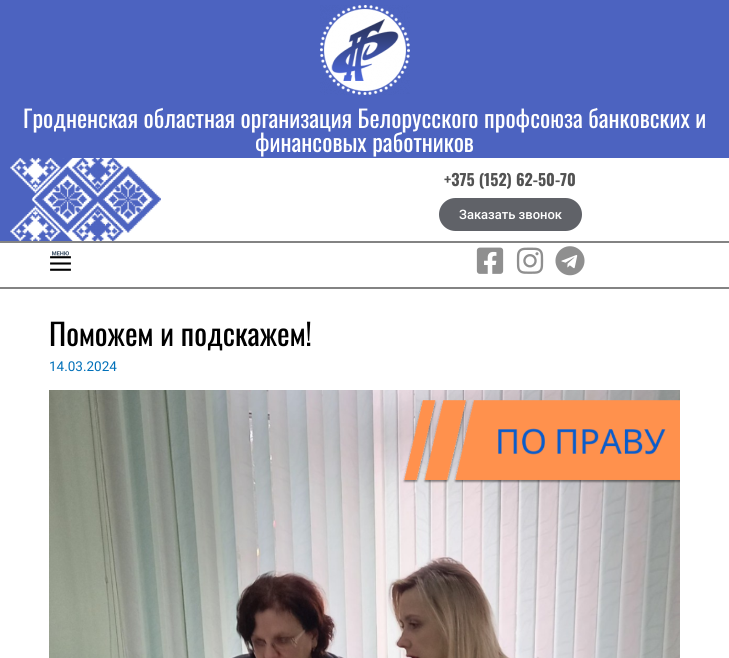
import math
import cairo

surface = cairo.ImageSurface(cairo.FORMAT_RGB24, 729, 658)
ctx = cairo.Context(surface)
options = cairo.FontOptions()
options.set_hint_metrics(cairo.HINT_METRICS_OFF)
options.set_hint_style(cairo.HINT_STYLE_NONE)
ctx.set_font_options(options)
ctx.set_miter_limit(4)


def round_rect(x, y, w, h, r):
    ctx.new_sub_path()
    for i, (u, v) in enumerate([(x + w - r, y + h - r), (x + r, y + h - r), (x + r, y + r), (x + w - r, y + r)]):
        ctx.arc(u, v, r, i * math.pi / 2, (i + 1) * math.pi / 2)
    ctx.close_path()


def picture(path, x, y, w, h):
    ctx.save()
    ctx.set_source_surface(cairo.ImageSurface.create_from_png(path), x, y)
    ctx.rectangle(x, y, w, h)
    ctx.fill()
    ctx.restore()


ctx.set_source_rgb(1, 1, 1)
ctx.paint()
ctx.set_source_rgb(0.298, 0.388, 0.753)
ctx.rectangle(0, 0, 729, 158)
ctx.fill()
picture("img1.png", 320, 5, 90, 90)
ctx.select_font_face("Oswald")
ctx.set_font_size(24)
ctx.set_source_rgb(1, 1, 1)
ctx.move_to(23, 128)
ctx.show_text("Гродненская областная организация Белорусского профсоюза банковских и")
ctx.move_to(255, 152)
ctx.show_text("финансовых работников")
picture("img2.png", 0, 158, 161, 83)
ctx.select_font_face("Oswald", cairo.FONT_SLANT_NORMAL, cairo.FONT_WEIGHT_BOLD)
ctx.set_font_size(16)
ctx.set_source_rgb(0.322, 0.322, 0.322)
ctx.move_to(444, 186)
ctx.show_text("+375 (152) 62-50-70")
ctx.set_source_rgb(0.376, 0.384, 0.408)
round_rect(439, 198, 143, 33, 16.5)
ctx.fill()
ctx.select_font_face("Roboto Medium")
ctx.set_font_size(13)
ctx.set_source_rgb(1, 1, 1)
ctx.move_to(459, 219)
ctx.show_text("Заказать звонок")
ctx.set_source_rgb(0.514, 0.514, 0.514)
ctx.rectangle(0, 241, 729, 2)
ctx.fill()
ctx.rectangle(0, 287, 729, 2)
ctx.fill()
picture("img3.png", 50, 251, 21, 20)
picture("img4.png", 476, 247, 28, 27)
picture("img5.png", 516, 247, 28, 27)
picture("img6.png", 555, 246, 30, 30)
ctx.select_font_face("Oswald")
ctx.set_font_size(30)
ctx.set_source_rgb(0, 0, 0)
ctx.move_to(49, 346)
ctx.show_text("Поможем и подскажем!")
ctx.select_font_face("Roboto")
ctx.set_font_size(13.5)
ctx.set_source_rgb(0.004, 0.439, 0.725)
ctx.move_to(49, 371)
ctx.show_text("14.03.2024")
picture("img7.png", 49, 390, 631, 268)
surface.write_to_png("page.png")
